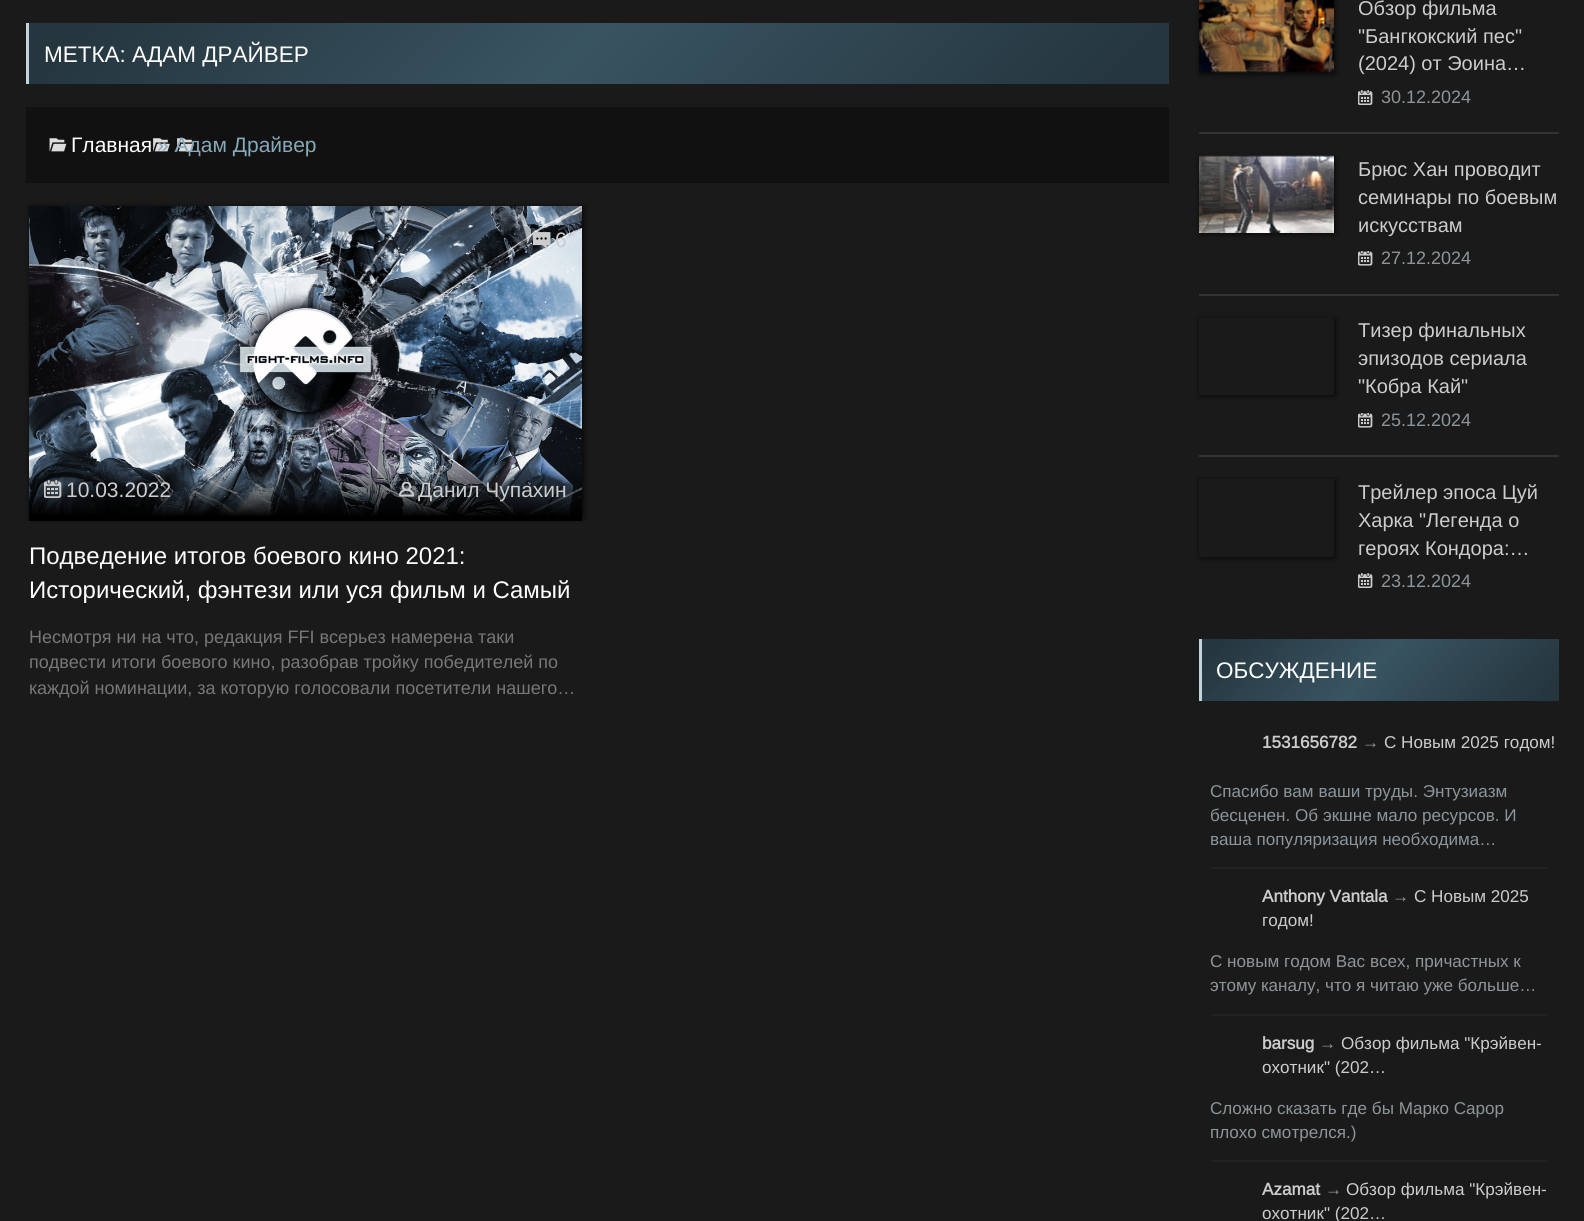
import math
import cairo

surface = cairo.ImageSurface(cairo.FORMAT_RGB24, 1584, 1221)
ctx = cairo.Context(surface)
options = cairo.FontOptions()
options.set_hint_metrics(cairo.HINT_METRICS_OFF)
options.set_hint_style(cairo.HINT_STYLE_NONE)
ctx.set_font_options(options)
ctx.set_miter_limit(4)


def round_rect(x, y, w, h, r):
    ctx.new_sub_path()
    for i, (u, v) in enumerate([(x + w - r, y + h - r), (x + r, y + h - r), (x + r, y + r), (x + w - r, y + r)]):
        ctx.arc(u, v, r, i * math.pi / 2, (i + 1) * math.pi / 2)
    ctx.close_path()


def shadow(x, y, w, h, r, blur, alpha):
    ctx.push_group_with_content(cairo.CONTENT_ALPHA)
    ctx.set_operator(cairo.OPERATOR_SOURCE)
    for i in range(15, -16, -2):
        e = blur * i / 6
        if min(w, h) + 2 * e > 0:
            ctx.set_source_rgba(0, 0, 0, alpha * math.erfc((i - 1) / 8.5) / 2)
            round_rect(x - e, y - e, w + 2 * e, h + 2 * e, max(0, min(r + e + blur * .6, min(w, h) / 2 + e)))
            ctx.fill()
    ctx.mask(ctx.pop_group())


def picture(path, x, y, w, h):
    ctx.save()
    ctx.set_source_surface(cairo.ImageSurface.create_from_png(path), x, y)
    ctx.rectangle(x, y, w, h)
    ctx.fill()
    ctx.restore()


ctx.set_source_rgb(0.102, 0.102, 0.102)
ctx.paint()
gradient = cairo.LinearGradient(298, -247, 899, 354)
gradient.add_color_stop_rgba(0.05, 0.145, 0.212, 0.247, 1)
gradient.add_color_stop_rgba(0.48, 0.224, 0.329, 0.384, 1)
gradient.add_color_stop_rgba(0.95, 0.145, 0.212, 0.247, 1)
ctx.set_source(gradient)
ctx.rectangle(29, 23, 1140, 61)
ctx.fill()
ctx.set_source_rgb(0.757, 0.831, 0.863)
ctx.rectangle(26, 23, 3, 61)
ctx.fill()
ctx.select_font_face("Arimo")
ctx.set_font_size(22.5)
ctx.set_source_rgb(1, 1, 1)
ctx.move_to(44, 62)
ctx.show_text("МЕТКА: АДАМ ДРАЙВЕР")
ctx.set_source_rgb(0.067, 0.067, 0.067)
ctx.rectangle(26, 107, 1143, 76)
ctx.fill()
picture("img1.png", 49, 138, 145, 14)
ctx.set_font_size(21)
ctx.set_source_rgb(1, 1, 1)
ctx.move_to(71, 152)
ctx.show_text("Главная")
ctx.set_source_rgb(0.525, 0.659, 0.725)
ctx.move_to(157, 152)
ctx.show_text("» Адам Драйвер")
ctx.set_source_rgb(0, 0, 0)
shadow(30, 207, 554, 311, 0, 3, 0.75)
picture("img2.png", 29, 206, 553, 310)
picture("img3.png", 533, 232, 18, 16)
ctx.set_source_rgb(0.8, 0.8, 0.8)
ctx.move_to(555, 247)
ctx.show_text("6")
gradient = cairo.LinearGradient(305, 521, 305, 468)
gradient.add_color_stop_rgba(0.08, 0, 0, 0, 1)
gradient.add_color_stop_rgba(1, 0, 0, 0, 0)
ctx.set_source(gradient)
ctx.rectangle(29, 469, 553, 52)
ctx.fill()
picture("img4.png", 44, 480, 18, 18)
ctx.set_source_rgb(0.8, 0.8, 0.8)
ctx.move_to(66, 497)
ctx.show_text("10.03.2022")
picture("img5.png", 399, 482, 15, 15)
ctx.move_to(418, 497)
ctx.show_text("Данил Чупахин")
ctx.set_font_size(24)
ctx.set_source_rgb(1, 1, 1)
ctx.move_to(29, 564)
ctx.show_text("Подведение итогов боевого кино 2021:")
ctx.move_to(29, 598)
ctx.show_text("Исторический, фэнтези или уся фильм и Самый")
ctx.set_font_size(18)
ctx.set_source_rgb(0.467, 0.467, 0.467)
ctx.move_to(29, 643)
ctx.show_text("Несмотря ни на что, редакция FFI всерьез намерена таки")
ctx.move_to(29, 668)
ctx.show_text("подвести итоги боевого кино, разобрав тройку победителей по")
ctx.move_to(29, 694)
ctx.show_text("каждой номинации, за которую голосовали посетители нашего…")
ctx.set_source_rgb(0, 0, 0)
shadow(1200, -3, 135, 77, 0, 3, 0.75)
picture("img6.png", 1199, 0, 135, 73)
ctx.set_font_size(20)
ctx.set_source_rgb(0.8, 0.8, 0.8)
ctx.move_to(1358, 15)
ctx.show_text("Обзор фильма")
ctx.move_to(1358, 43)
ctx.show_text("\"Бангкокский пес\"")
ctx.move_to(1358, 70)
ctx.show_text("(2024) от Эоина…")
picture("img7.png", 1358, 90, 15, 15)
ctx.set_font_size(18)
ctx.set_source_rgb(0.553, 0.584, 0.604)
ctx.move_to(1381, 103)
ctx.show_text("30.12.2024")
ctx.set_source_rgb(0.2, 0.2, 0.2)
ctx.rectangle(1199, 132, 360, 2)
ctx.fill()
ctx.set_source_rgb(0, 0, 0)
shadow(1200, 158, 135, 76, 0, 3, 0.75)
picture("img8.png", 1199, 155, 135, 78)
ctx.set_font_size(20)
ctx.set_source_rgb(0.8, 0.8, 0.8)
ctx.move_to(1358, 176)
ctx.show_text("Брюс Хан проводит")
ctx.move_to(1358, 204)
ctx.show_text("семинары по боевым")
ctx.move_to(1358, 232)
ctx.show_text("искусствам")
picture("img9.png", 1358, 251, 15, 15)
ctx.set_font_size(18)
ctx.set_source_rgb(0.553, 0.584, 0.604)
ctx.move_to(1381, 264)
ctx.show_text("27.12.2024")
ctx.set_source_rgb(0.2, 0.2, 0.2)
ctx.rectangle(1199, 294, 360, 2)
ctx.fill()
ctx.save()
ctx.set_fill_rule(cairo.FILL_RULE_EVEN_ODD)
ctx.new_path()
ctx.move_to(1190, 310)
ctx.line_to(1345, 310)
ctx.line_to(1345, 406)
ctx.line_to(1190, 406)
ctx.close_path()
ctx.move_to(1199, 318)
ctx.line_to(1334, 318)
ctx.line_to(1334, 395)
ctx.line_to(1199, 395)
ctx.close_path()
ctx.clip()
ctx.set_source_rgb(0, 0, 0)
shadow(1200, 320, 135, 76, 0, 3, 0.75)
ctx.restore()
ctx.set_font_size(20)
ctx.set_source_rgb(0.8, 0.8, 0.8)
ctx.move_to(1358, 337)
ctx.show_text("Тизер финальных")
ctx.move_to(1358, 365)
ctx.show_text("эпизодов сериала")
ctx.move_to(1358, 393)
ctx.show_text("\"Кобра Кай\"")
picture("img9.png", 1358, 413, 15, 15)
ctx.set_font_size(18)
ctx.set_source_rgb(0.553, 0.584, 0.604)
ctx.move_to(1381, 426)
ctx.show_text("25.12.2024")
ctx.set_source_rgb(0.2, 0.2, 0.2)
ctx.rectangle(1199, 455, 360, 2)
ctx.fill()
ctx.save()
ctx.set_fill_rule(cairo.FILL_RULE_EVEN_ODD)
ctx.new_path()
ctx.move_to(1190, 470)
ctx.line_to(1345, 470)
ctx.line_to(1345, 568)
ctx.line_to(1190, 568)
ctx.close_path()
ctx.move_to(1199, 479)
ctx.line_to(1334, 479)
ctx.line_to(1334, 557)
ctx.line_to(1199, 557)
ctx.close_path()
ctx.clip()
ctx.set_source_rgb(0, 0, 0)
shadow(1200, 480, 135, 78, 0, 3, 0.75)
ctx.restore()
ctx.set_font_size(20)
ctx.set_source_rgb(0.8, 0.8, 0.8)
ctx.move_to(1358, 499)
ctx.show_text("Трейлер эпоса Цуй")
ctx.move_to(1358, 527)
ctx.show_text("Харка \"Легенда о")
ctx.move_to(1358, 555)
ctx.show_text("героях Кондора:…")
picture("img7.png", 1358, 573, 15, 15)
ctx.set_font_size(18)
ctx.set_source_rgb(0.553, 0.584, 0.604)
ctx.move_to(1381, 587)
ctx.show_text("23.12.2024")
gradient = cairo.LinearGradient(1275, 565, 1485, 774)
gradient.add_color_stop_rgba(0.05, 0.145, 0.212, 0.247, 1)
gradient.add_color_stop_rgba(0.48, 0.224, 0.329, 0.384, 1)
gradient.add_color_stop_rgba(0.95, 0.145, 0.212, 0.247, 1)
ctx.set_source(gradient)
ctx.rectangle(1202, 639, 357, 62)
ctx.fill()
ctx.set_source_rgb(0.757, 0.831, 0.863)
ctx.rectangle(1199, 639, 3, 62)
ctx.fill()
ctx.set_font_size(22.5)
ctx.set_source_rgb(1, 1, 1)
ctx.move_to(1216, 678)
ctx.show_text("ОБСУЖДЕНИЕ")
ctx.select_font_face("Arimo", cairo.FONT_SLANT_NORMAL, cairo.FONT_WEIGHT_BOLD)
ctx.set_font_size(17.1)
ctx.set_source_rgb(0.8, 0.8, 0.8)
ctx.move_to(1262, 748)
ctx.show_text("1531656782")
ctx.select_font_face("Arimo")
ctx.set_source_rgb(0.553, 0.584, 0.604)
ctx.move_to(1362, 748)
ctx.show_text("→")
ctx.set_source_rgb(0.8, 0.8, 0.8)
ctx.move_to(1384, 748)
ctx.show_text("С Новым 2025 годом!")
ctx.set_source_rgb(0.133, 0.133, 0.133)
ctx.rectangle(1211, 867, 336, 2)
ctx.fill()
ctx.set_source_rgb(0.553, 0.584, 0.604)
ctx.move_to(1210, 797)
ctx.show_text("Спасибо вам ваши труды. Энтузиазм")
ctx.move_to(1210, 821)
ctx.show_text("бесценен. Об экшне мало ресурсов. И")
ctx.move_to(1210, 845)
ctx.show_text("ваша популяризация необходима…")
ctx.select_font_face("Arimo", cairo.FONT_SLANT_NORMAL, cairo.FONT_WEIGHT_BOLD)
ctx.set_source_rgb(0.8, 0.8, 0.8)
ctx.move_to(1262, 902)
ctx.show_text("Anthony Vantala")
ctx.select_font_face("Arimo")
ctx.set_source_rgb(0.553, 0.584, 0.604)
ctx.move_to(1392, 902)
ctx.show_text("→")
ctx.set_source_rgb(0.8, 0.8, 0.8)
ctx.move_to(1414, 902)
ctx.show_text("С Новым 2025")
ctx.move_to(1262, 926)
ctx.show_text("годом!")
ctx.set_source_rgb(0.133, 0.133, 0.133)
ctx.rectangle(1211, 1014, 336, 2)
ctx.fill()
ctx.set_source_rgb(0.553, 0.584, 0.604)
ctx.move_to(1210, 967)
ctx.show_text("С новым годом Вас всех, причастных к")
ctx.move_to(1210, 991)
ctx.show_text("этому каналу, что я читаю уже больше…")
ctx.select_font_face("Arimo", cairo.FONT_SLANT_NORMAL, cairo.FONT_WEIGHT_BOLD)
ctx.set_source_rgb(0.8, 0.8, 0.8)
ctx.move_to(1262, 1049)
ctx.show_text("barsug")
ctx.select_font_face("Arimo")
ctx.set_source_rgb(0.553, 0.584, 0.604)
ctx.move_to(1319, 1049)
ctx.show_text("→")
ctx.set_source_rgb(0.8, 0.8, 0.8)
ctx.move_to(1341, 1049)
ctx.show_text("Обзор фильма \"Крэйвен-")
ctx.move_to(1262, 1073)
ctx.show_text("охотник\" (202…")
ctx.set_source_rgb(0.133, 0.133, 0.133)
ctx.rectangle(1211, 1160, 336, 2)
ctx.fill()
ctx.set_source_rgb(0.553, 0.584, 0.604)
ctx.move_to(1210, 1114)
ctx.show_text("Сложно сказать где бы Марко Сарор")
ctx.move_to(1210, 1138)
ctx.show_text("плохо смотрелся.)")
ctx.select_font_face("Arimo", cairo.FONT_SLANT_NORMAL, cairo.FONT_WEIGHT_BOLD)
ctx.set_source_rgb(0.8, 0.8, 0.8)
ctx.move_to(1262, 1195)
ctx.show_text("Azamat")
ctx.select_font_face("Arimo")
ctx.set_source_rgb(0.553, 0.584, 0.604)
ctx.move_to(1325, 1195)
ctx.show_text("→")
ctx.set_source_rgb(0.8, 0.8, 0.8)
ctx.move_to(1346, 1195)
ctx.show_text("Обзор фильма \"Крэйвен-")
ctx.move_to(1262, 1219)
ctx.show_text("охотник\" (202…")
surface.write_to_png("page.png")
